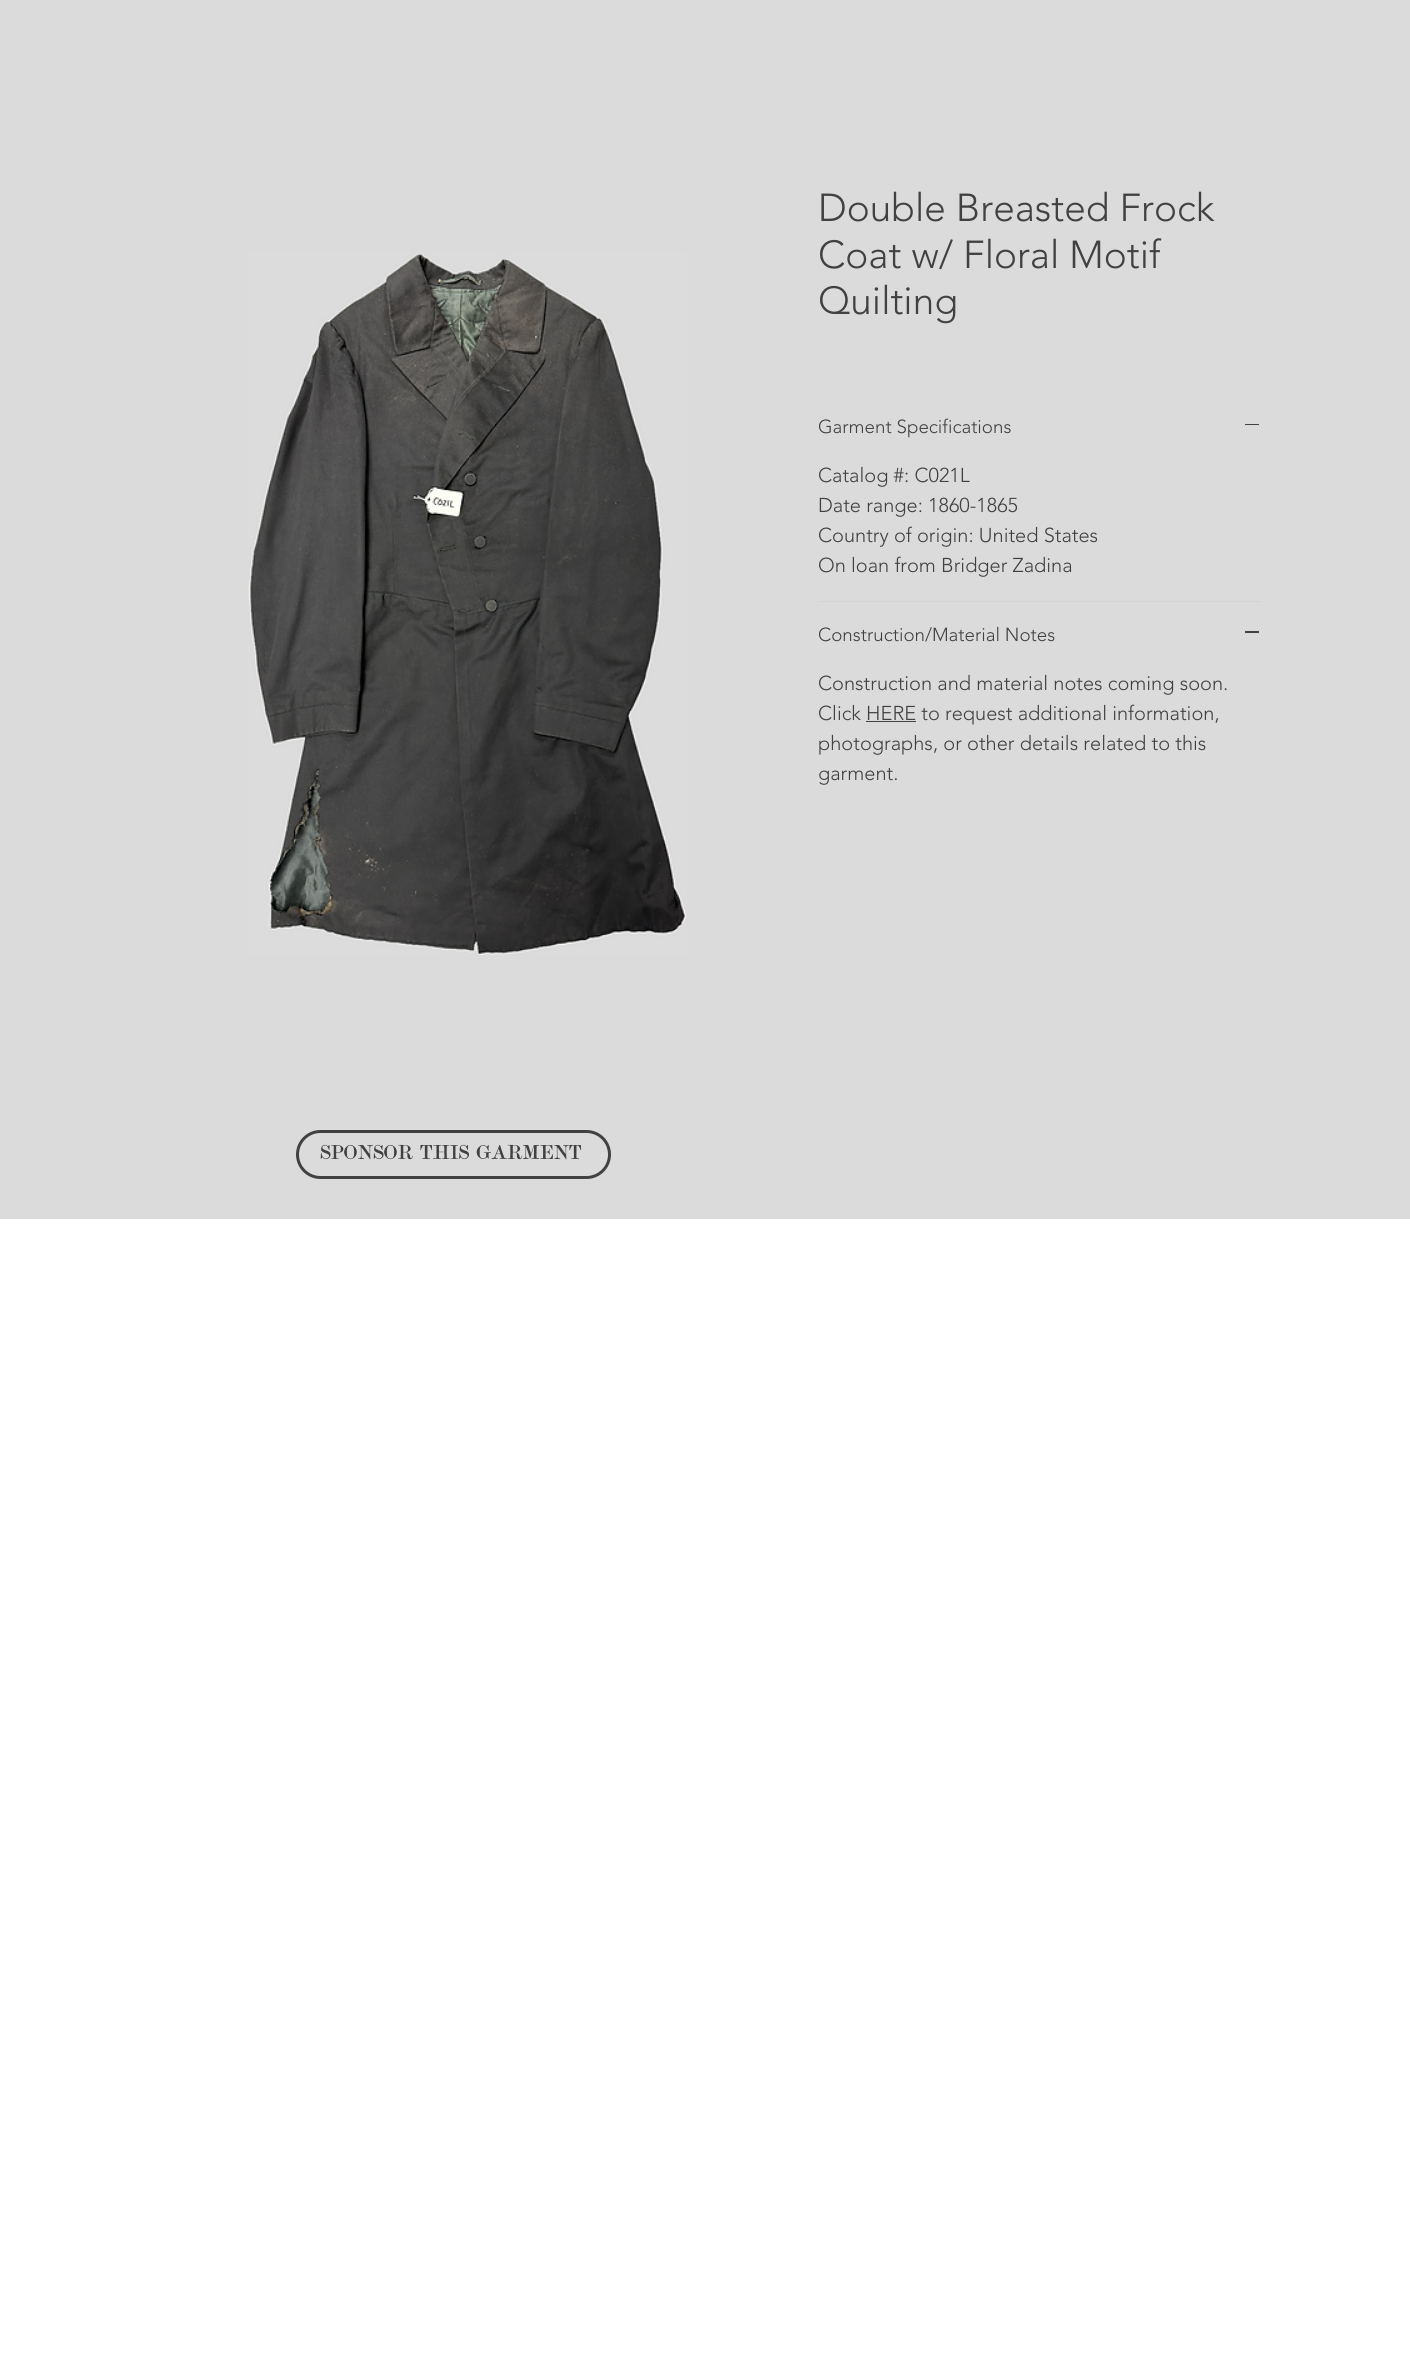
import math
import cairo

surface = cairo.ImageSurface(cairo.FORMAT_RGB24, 1410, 2354)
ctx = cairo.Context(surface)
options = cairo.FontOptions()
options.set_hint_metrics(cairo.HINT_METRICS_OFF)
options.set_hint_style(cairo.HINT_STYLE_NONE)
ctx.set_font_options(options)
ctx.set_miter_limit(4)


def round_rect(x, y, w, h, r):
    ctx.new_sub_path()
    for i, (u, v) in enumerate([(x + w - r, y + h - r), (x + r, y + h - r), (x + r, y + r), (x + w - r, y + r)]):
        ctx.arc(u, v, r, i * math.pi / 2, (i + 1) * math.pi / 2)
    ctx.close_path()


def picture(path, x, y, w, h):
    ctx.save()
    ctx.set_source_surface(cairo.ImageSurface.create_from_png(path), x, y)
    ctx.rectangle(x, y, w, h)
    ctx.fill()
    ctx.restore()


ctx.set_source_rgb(1, 1, 1)
ctx.paint()
ctx.set_source_rgb(0.859, 0.859, 0.859)
ctx.rectangle(0, 0, 1410, 1219)
ctx.fill()
picture("img1.png", 248, 252, 439, 703)
ctx.select_font_face("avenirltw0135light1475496 Light")
ctx.set_font_size(38.75)
ctx.set_source_rgb(0.255, 0.255, 0.255)
ctx.move_to(818, 221)
ctx.show_text("Double Breasted Frock")
ctx.move_to(818, 268)
ctx.show_text("Coat w/ Floral Motif")
ctx.move_to(818, 314)
ctx.show_text("Quilting")
ctx.set_source_rgb(0.831, 0.831, 0.824)
ctx.rectangle(818, 601, 443, 1)
ctx.fill()
ctx.set_font_size(18.75)
ctx.set_source_rgb(0.255, 0.255, 0.255)
ctx.move_to(818, 433)
ctx.show_text("Garment Specifications")
ctx.rectangle(1245, 424, 14, 1)
ctx.fill()
ctx.set_font_size(20)
ctx.move_to(818, 482)
ctx.show_text("Catalog #: C021L")
ctx.move_to(818, 512)
ctx.show_text("Date range: 1860-1865")
ctx.move_to(818, 542)
ctx.show_text("Country of origin: United States")
ctx.move_to(818, 572)
ctx.show_text("On loan from Bridger Zadina")
ctx.set_font_size(18.75)
ctx.move_to(818, 641)
ctx.show_text("Construction/Material Notes")
ctx.rectangle(1245, 631, 14, 2)
ctx.fill()
ctx.set_font_size(20)
ctx.move_to(818, 690)
ctx.show_text("Construction and material notes coming soon.")
ctx.move_to(818, 720)
ctx.show_text("Click HERE to request additional information,")
ctx.rectangle(866, 721, 50, 1)
ctx.fill()
ctx.move_to(818, 750)
ctx.show_text("photographs, or other details related to this")
ctx.move_to(818, 780)
ctx.show_text("garment.")
round_rect(297.5, 1131.5, 312, 46, 23)
ctx.set_line_width(3)
ctx.stroke()
ctx.select_font_face("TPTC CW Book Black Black")
ctx.move_to(320, 1159)
ctx.show_text("SPONSOR THIS GARMENT")
surface.write_to_png("page.png")
